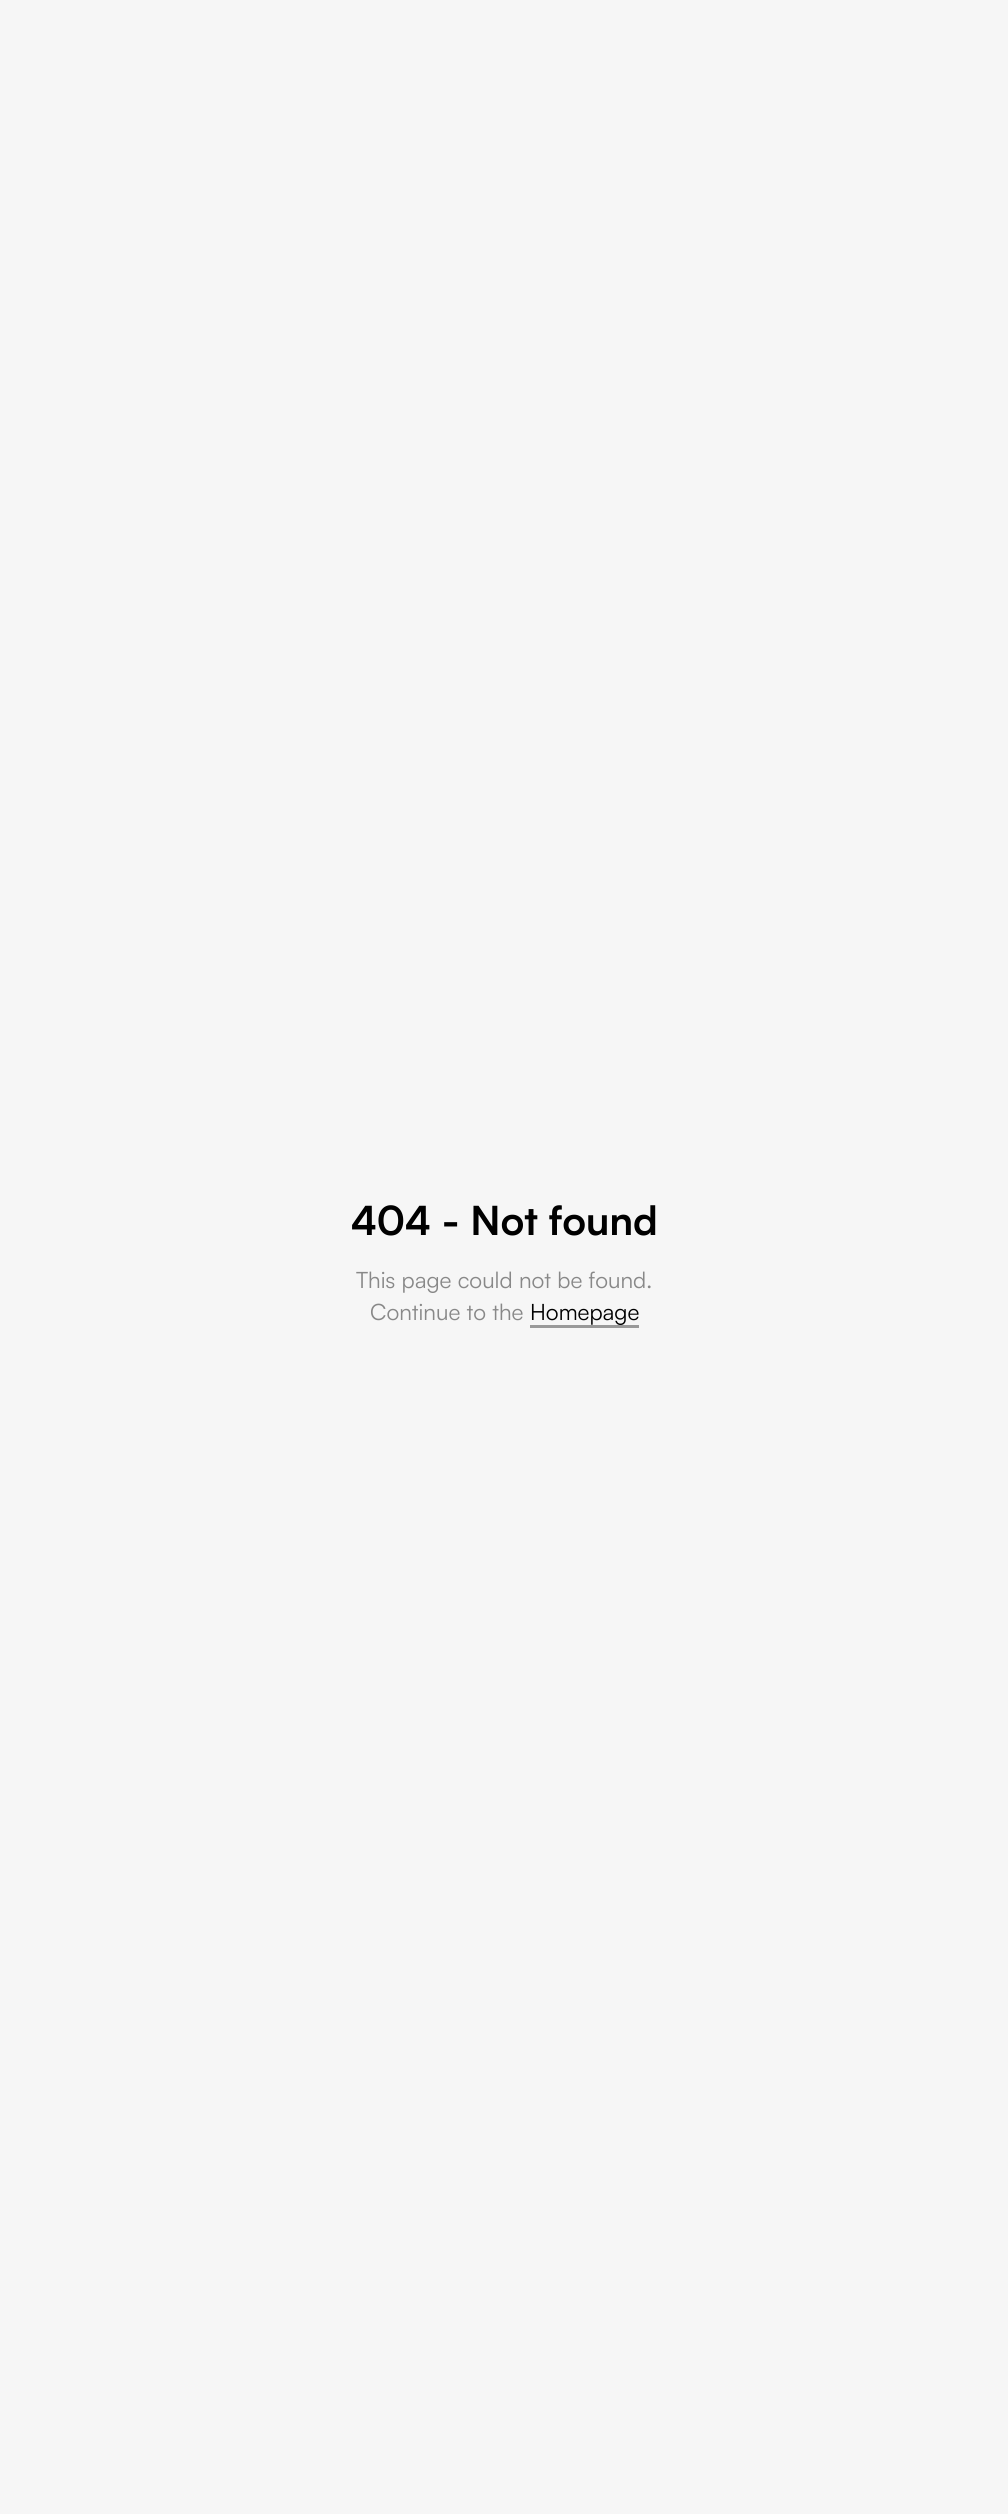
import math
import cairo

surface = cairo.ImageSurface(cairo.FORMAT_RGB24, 1008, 2514)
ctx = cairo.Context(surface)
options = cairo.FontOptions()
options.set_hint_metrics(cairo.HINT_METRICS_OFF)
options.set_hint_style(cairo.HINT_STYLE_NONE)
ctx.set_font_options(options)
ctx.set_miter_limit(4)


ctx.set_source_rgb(0.961, 0.961, 0.961)
ctx.paint()
ctx.select_font_face("Satoshi", cairo.FONT_SLANT_NORMAL, cairo.FONT_WEIGHT_BOLD)
ctx.set_font_size(40)
ctx.set_source_rgb(0, 0, 0)
ctx.move_to(351, 1235)
ctx.show_text("404 - Not found")
ctx.select_font_face("Satoshi")
ctx.set_font_size(22.5)
ctx.set_source_rgb(0.533, 0.533, 0.533)
ctx.move_to(356, 1288)
ctx.show_text("This page could not be found.")
ctx.move_to(370, 1320)
ctx.show_text("Continue to the")
ctx.set_source_rgb(0, 0, 0)
ctx.move_to(530, 1320)
ctx.show_text("Homepage")
ctx.set_source_rgb(0.6, 0.6, 0.6)
ctx.rectangle(530, 1325, 109, 3)
ctx.fill()
surface.write_to_png("page.png")
